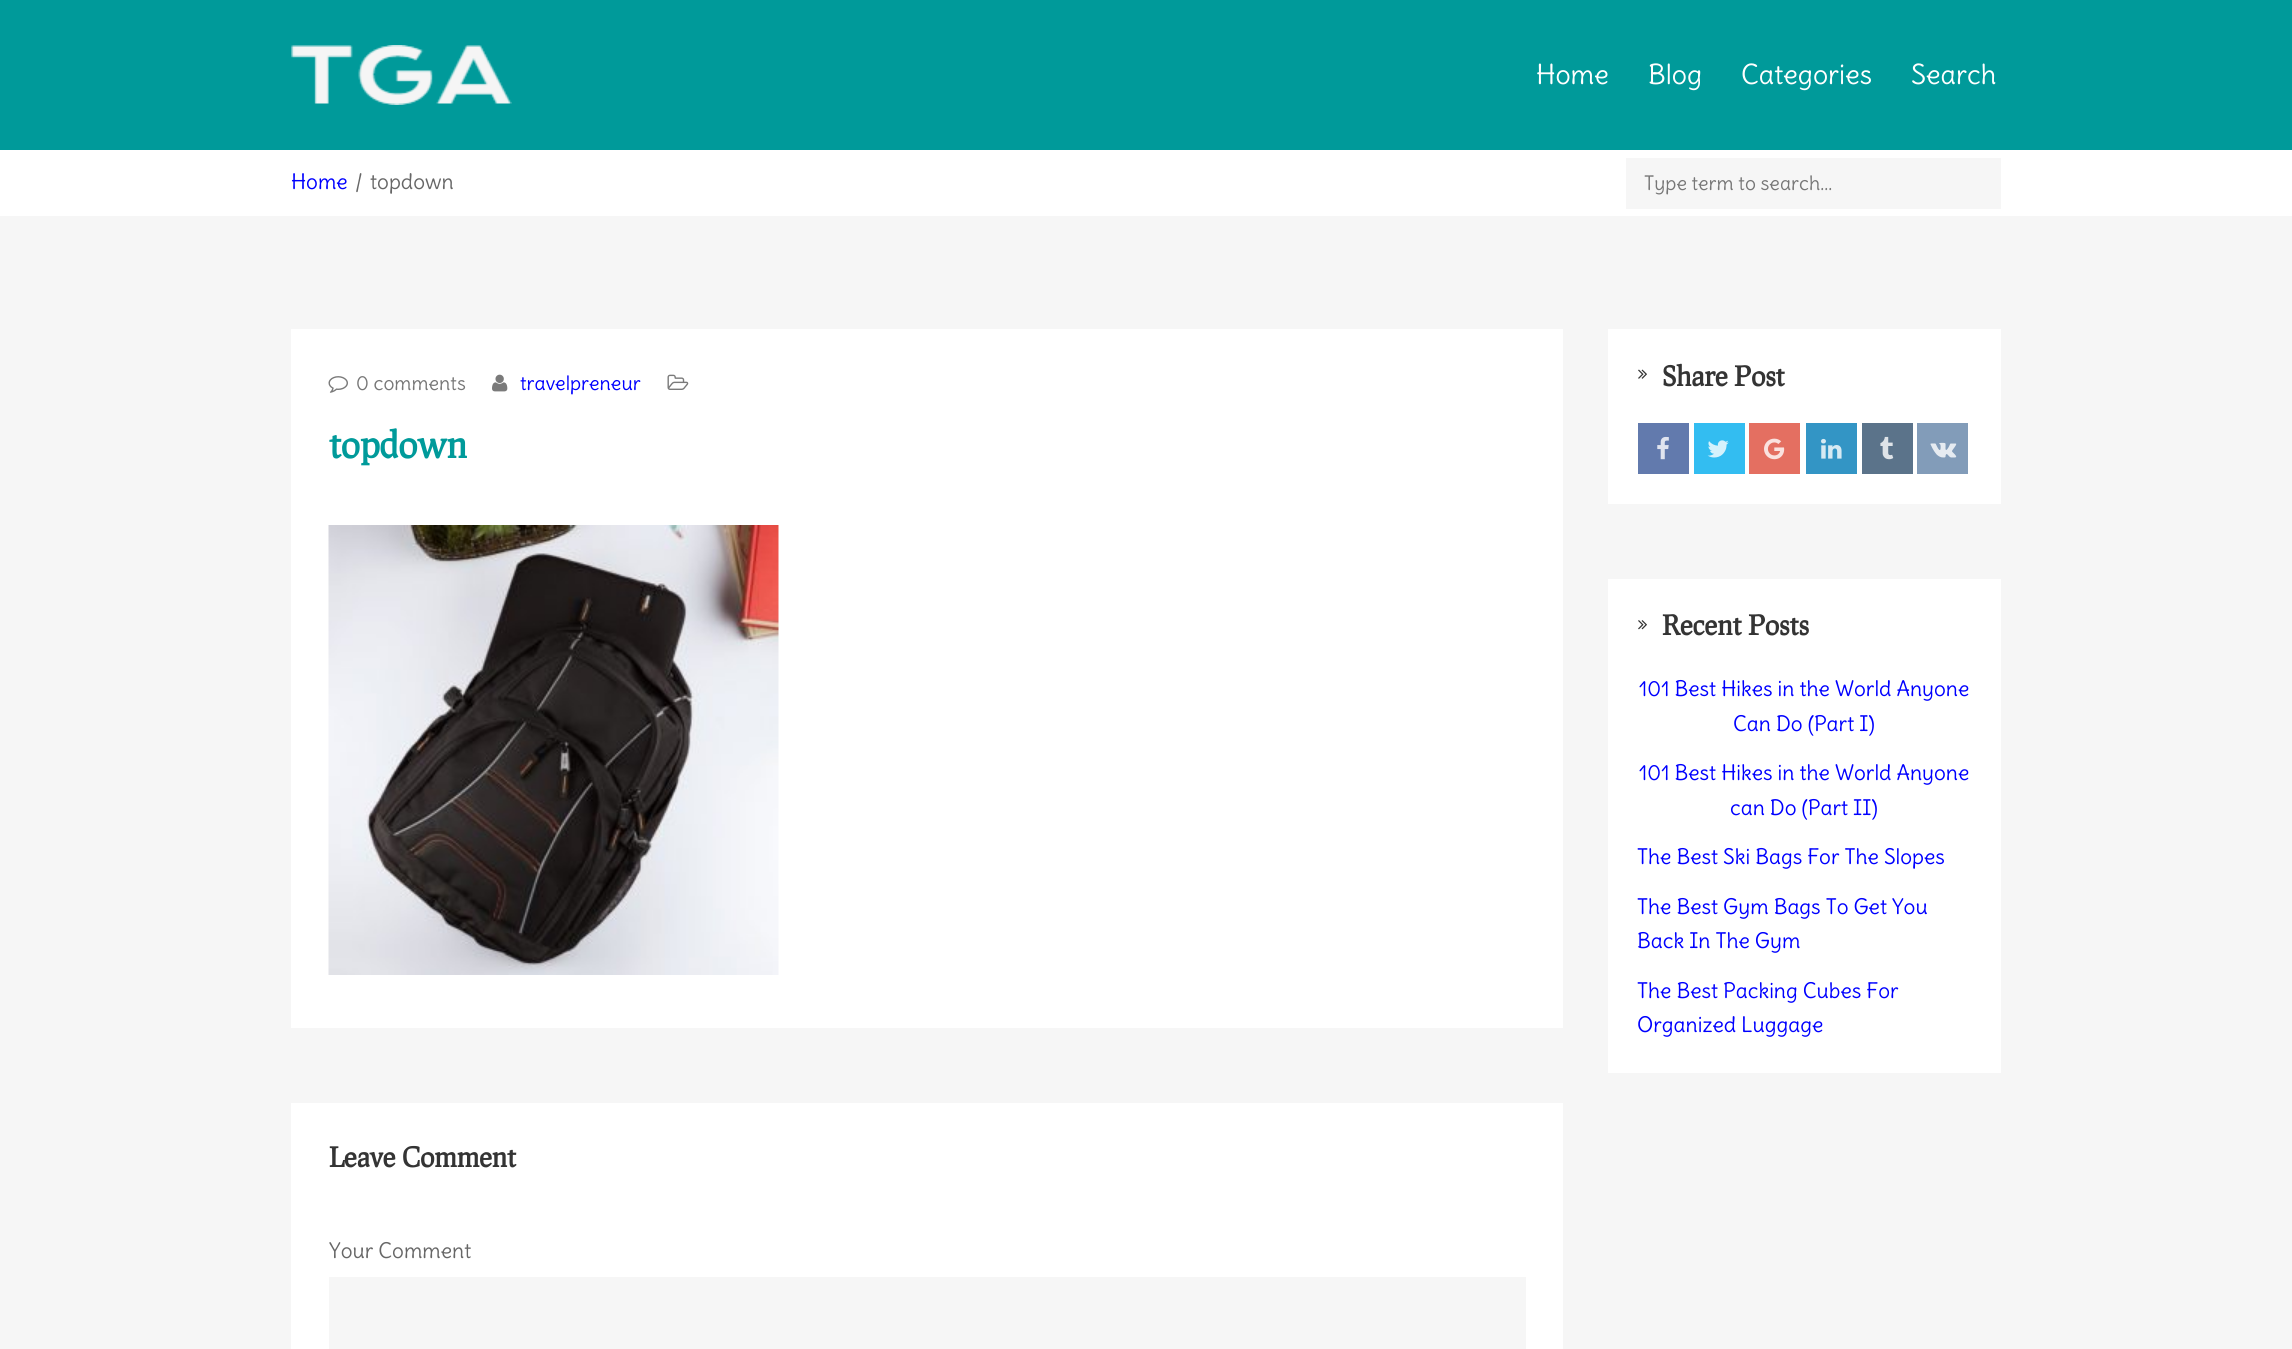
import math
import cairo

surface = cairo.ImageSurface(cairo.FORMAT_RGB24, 2292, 1349)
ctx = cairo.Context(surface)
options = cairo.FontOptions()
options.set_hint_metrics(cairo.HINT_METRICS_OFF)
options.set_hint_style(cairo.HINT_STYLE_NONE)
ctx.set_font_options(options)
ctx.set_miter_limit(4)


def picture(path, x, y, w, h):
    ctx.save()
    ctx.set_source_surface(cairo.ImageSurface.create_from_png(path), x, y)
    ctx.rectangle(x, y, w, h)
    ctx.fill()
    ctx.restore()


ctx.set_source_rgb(0.961, 0.961, 0.961)
ctx.paint()
ctx.set_source_rgb(0, 0.604, 0.604)
ctx.rectangle(0, 0, 2292, 150)
ctx.fill()
picture("img1.png", 291, 45, 221, 60)
ctx.select_font_face("Delius")
ctx.set_font_size(27)
ctx.set_source_rgb(1, 1, 1)
ctx.move_to(1536, 84)
ctx.show_text("Home")
ctx.move_to(1648, 84)
ctx.show_text("Blog")
ctx.move_to(1741, 84)
ctx.show_text("Categories")
ctx.move_to(1911, 84)
ctx.show_text("Search")
ctx.rectangle(0, 150, 2292, 66)
ctx.fill()
ctx.set_font_size(21)
ctx.set_source_rgb(0, 0, 1)
ctx.move_to(291, 189)
ctx.show_text("Home")
ctx.set_source_rgb(0.404, 0.404, 0.404)
ctx.move_to(355, 189)
ctx.show_text("/")
ctx.move_to(370, 189)
ctx.show_text("topdown")
ctx.set_source_rgb(0.961, 0.961, 0.961)
ctx.rectangle(1626, 158, 375, 51)
ctx.fill()
ctx.set_font_size(19.5)
ctx.set_source_rgb(0.467, 0.467, 0.467)
ctx.move_to(1644, 190)
ctx.show_text("Type term to search...")
ctx.set_source_rgb(1, 1, 1)
ctx.rectangle(291, 329, 1272, 699)
ctx.fill()
picture("img2.png", 328, 376, 20, 17)
ctx.set_source_rgb(0.467, 0.467, 0.467)
ctx.move_to(356, 390)
ctx.show_text("0 comments")
picture("img3.png", 492, 374, 16, 18)
ctx.set_source_rgb(0, 0, 1)
ctx.move_to(520, 390)
ctx.show_text("travelpreneur")
picture("img4.png", 667, 374, 22, 16)
ctx.select_font_face("Prociono", cairo.FONT_SLANT_NORMAL, cairo.FONT_WEIGHT_BOLD)
ctx.set_font_size(36)
ctx.set_source_rgb(0, 0.604, 0.604)
ctx.move_to(329, 458)
ctx.show_text("topdown")
picture("img5.png", 328, 525, 451, 450)
ctx.set_source_rgb(1, 1, 1)
ctx.rectangle(291, 1103, 1272, 246)
ctx.fill()
ctx.set_font_size(27)
ctx.set_source_rgb(0.204, 0.204, 0.204)
ctx.move_to(329, 1167)
ctx.show_text("Leave Comment")
ctx.select_font_face("Delius")
ctx.set_font_size(21)
ctx.set_source_rgb(0.404, 0.404, 0.404)
ctx.move_to(329, 1258)
ctx.show_text("Your Comment")
ctx.set_source_rgb(0.961, 0.961, 0.961)
ctx.rectangle(329, 1277, 1197, 72)
ctx.fill()
ctx.set_source_rgb(1, 1, 1)
ctx.rectangle(1608, 329, 393, 175)
ctx.fill()
picture("img6.png", 1638, 369, 9, 10)
ctx.select_font_face("Prociono", cairo.FONT_SLANT_NORMAL, cairo.FONT_WEIGHT_BOLD)
ctx.set_font_size(27)
ctx.set_source_rgb(0.204, 0.204, 0.204)
ctx.move_to(1662, 386)
ctx.show_text("Share Post")
ctx.set_source_rgb(0.384, 0.478, 0.678)
ctx.rectangle(1638, 423, 51, 51)
ctx.fill()
picture("img7.png", 1657, 436, 12, 24)
ctx.set_source_rgb(0.2, 0.741, 0.945)
ctx.rectangle(1694, 423, 51, 51)
ctx.fill()
picture("img8.png", 1707, 440, 22, 18)
ctx.set_source_rgb(0.894, 0.435, 0.38)
ctx.rectangle(1749, 423, 51, 51)
ctx.fill()
picture("img9.png", 1764, 438, 21, 22)
ctx.set_source_rgb(0.2, 0.584, 0.773)
ctx.rectangle(1806, 423, 51, 51)
ctx.fill()
picture("img10.png", 1821, 438, 21, 21)
ctx.set_source_rgb(0.357, 0.451, 0.541)
ctx.rectangle(1862, 423, 51, 51)
ctx.fill()
picture("img11.png", 1880, 436, 14, 24)
ctx.set_source_rgb(0.51, 0.612, 0.725)
ctx.rectangle(1917, 423, 51, 51)
ctx.fill()
picture("img12.png", 1930, 442, 27, 16)
ctx.set_source_rgb(1, 1, 1)
ctx.rectangle(1608, 579, 393, 494)
ctx.fill()
picture("img13.png", 1638, 620, 9, 10)
ctx.set_source_rgb(0.204, 0.204, 0.204)
ctx.move_to(1662, 635)
ctx.show_text("Recent Posts")
ctx.select_font_face("Delius")
ctx.set_font_size(21)
ctx.set_source_rgb(0, 0, 1)
ctx.move_to(1639, 696)
ctx.show_text("101 Best Hikes in the World Anyone")
ctx.move_to(1733, 731)
ctx.show_text("Can Do (Part I)")
ctx.move_to(1639, 780)
ctx.show_text("101 Best Hikes in the World Anyone")
ctx.move_to(1730, 815)
ctx.show_text("can Do (Part II)")
ctx.move_to(1637, 864)
ctx.show_text("The Best Ski Bags For The Slopes")
ctx.move_to(1637, 914)
ctx.show_text("The Best Gym Bags To Get You")
ctx.move_to(1637, 948)
ctx.show_text("Back In The Gym")
ctx.move_to(1637, 998)
ctx.show_text("The Best Packing Cubes For")
ctx.move_to(1637, 1032)
ctx.show_text("Organized Luggage")
surface.write_to_png("page.png")
